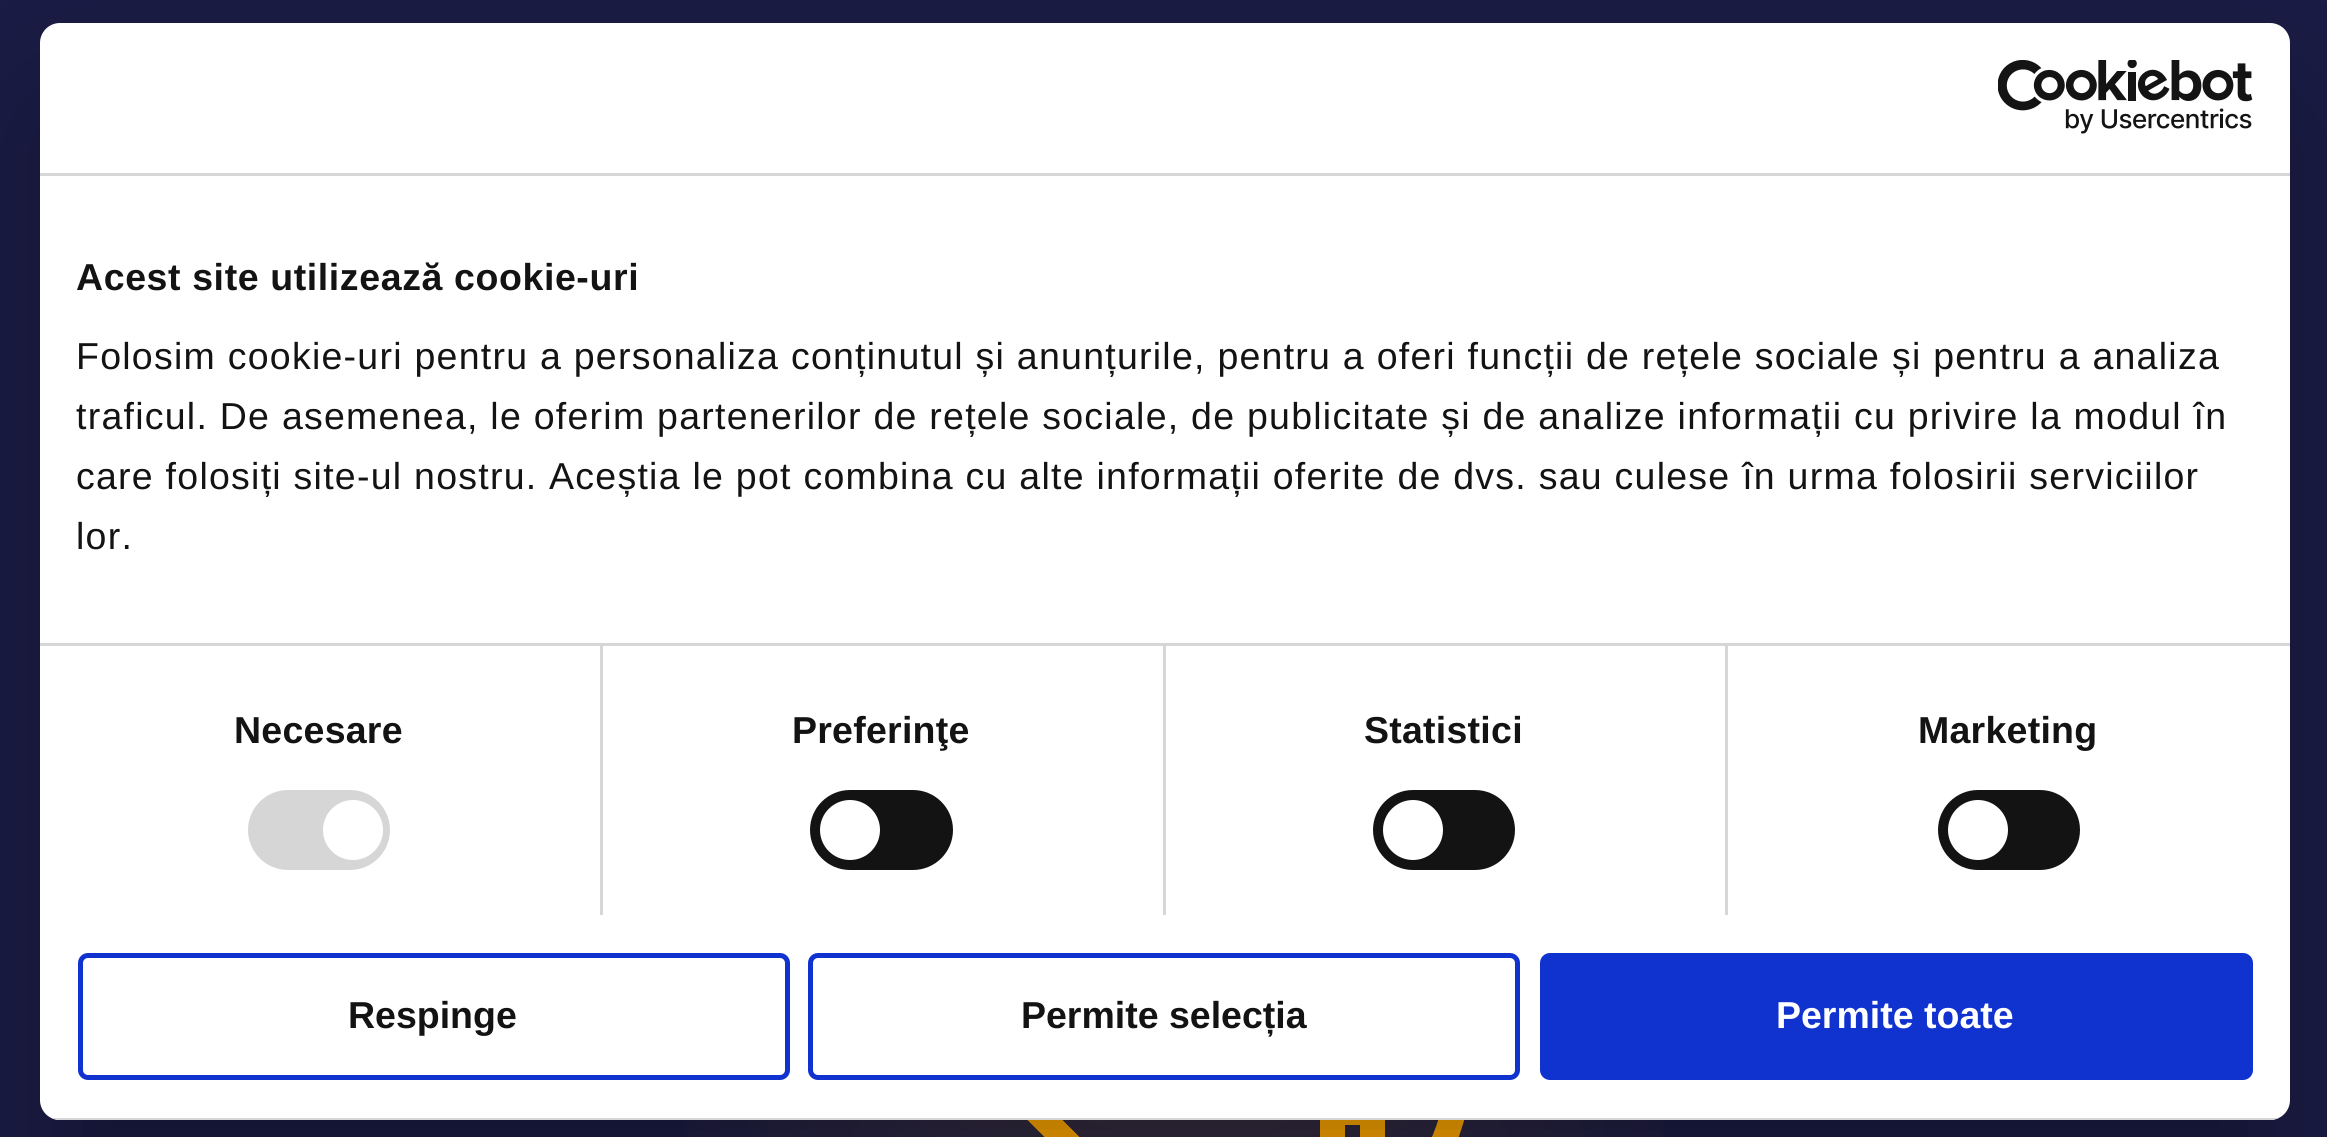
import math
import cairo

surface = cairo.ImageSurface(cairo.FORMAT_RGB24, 2327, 1137)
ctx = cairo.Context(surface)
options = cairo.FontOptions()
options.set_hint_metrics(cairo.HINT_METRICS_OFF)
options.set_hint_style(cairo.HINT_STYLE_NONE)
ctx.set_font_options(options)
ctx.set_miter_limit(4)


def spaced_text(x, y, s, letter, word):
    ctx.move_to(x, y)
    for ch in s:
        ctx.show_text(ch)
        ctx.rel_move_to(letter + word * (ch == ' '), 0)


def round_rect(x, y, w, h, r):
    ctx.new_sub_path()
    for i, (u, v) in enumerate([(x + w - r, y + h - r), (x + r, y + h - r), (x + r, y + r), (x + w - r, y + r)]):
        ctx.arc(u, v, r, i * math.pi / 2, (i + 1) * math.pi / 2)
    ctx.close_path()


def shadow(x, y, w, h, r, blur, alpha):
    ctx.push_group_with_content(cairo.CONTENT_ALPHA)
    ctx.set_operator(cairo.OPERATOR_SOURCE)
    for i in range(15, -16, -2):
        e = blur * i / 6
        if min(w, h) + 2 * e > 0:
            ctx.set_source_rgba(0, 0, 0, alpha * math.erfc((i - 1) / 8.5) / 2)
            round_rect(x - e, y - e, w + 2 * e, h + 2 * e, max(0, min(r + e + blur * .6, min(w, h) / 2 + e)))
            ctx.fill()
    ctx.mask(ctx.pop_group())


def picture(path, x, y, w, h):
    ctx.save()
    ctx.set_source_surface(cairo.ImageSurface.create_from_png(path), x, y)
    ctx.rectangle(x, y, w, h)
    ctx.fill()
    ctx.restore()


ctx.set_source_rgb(0.106, 0.11, 0.275)
ctx.paint()
picture("img2.png", 684, 1120, 980, 17)
ctx.save()
ctx.set_fill_rule(cairo.FILL_RULE_EVEN_ODD)
ctx.new_path()
ctx.move_to(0, 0)
ctx.line_to(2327, 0)
ctx.line_to(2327, 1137)
ctx.line_to(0, 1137)
ctx.close_path()
ctx.move_to(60, 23)
ctx.line_to(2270, 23)
ctx.curve_to(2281, 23, 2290, 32, 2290, 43)
ctx.line_to(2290, 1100)
ctx.curve_to(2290, 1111, 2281, 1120, 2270, 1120)
ctx.line_to(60, 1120)
ctx.curve_to(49, 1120, 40, 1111, 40, 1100)
ctx.line_to(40, 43)
ctx.curve_to(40, 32, 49, 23, 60, 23)
ctx.close_path()
ctx.clip()
ctx.set_source_rgb(0, 0, 0)
shadow(40, 103, 2250, 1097, 20, 85, 0.3)
ctx.restore()
ctx.set_source_rgb(1, 1, 1)
round_rect(40, 23, 2250, 1097, 20)
ctx.fill()
ctx.set_source_rgb(0.839, 0.839, 0.839)
ctx.rectangle(40, 173, 2250, 3)
ctx.fill()
picture("img1.png", 1998, 60, 255, 74)
ctx.rectangle(600, 645, 3, 270)
ctx.fill()
ctx.rectangle(1163, 645, 3, 270)
ctx.fill()
ctx.rectangle(1725, 645, 3, 270)
ctx.fill()
ctx.rectangle(40, 643, 2250, 3)
ctx.fill()
ctx.select_font_face("Liberation Sans", cairo.FONT_SLANT_NORMAL, cairo.FONT_WEIGHT_BOLD)
ctx.set_font_size(37.5)
ctx.set_source_rgb(0.078, 0.078, 0.078)
spaced_text(76, 290, "Acest site utilizează cookie-uri", 0.6, 0)
ctx.select_font_face("Liberation Sans")
spaced_text(76, 369, "Folosim cookie-uri pentru a personaliza conținutul și anunțurile, pentru a oferi funcții de rețele sociale și pentru a analiza", 1.25, 0)
spaced_text(76, 429, "traficul. De asemenea, le oferim partenerilor de rețele sociale, de publicitate și de analize informații cu privire la modul în", 1.25, 0)
spaced_text(76, 489, "care folosiți site-ul nostru. Aceștia le pot combina cu alte informații oferite de dvs. sau culese în urma folosirii serviciilor", 1.25, 0)
spaced_text(76, 549, "lor.", 1.25, 0)
ctx.select_font_face("Liberation Sans", cairo.FONT_SLANT_NORMAL, cairo.FONT_WEIGHT_BOLD)
spaced_text(234, 743, "Necesare", 0.25, 0)
ctx.set_source_rgb(0.839, 0.839, 0.839)
round_rect(248, 790, 142, 80, 40)
ctx.fill()
ctx.set_source_rgb(1, 1, 1)
ctx.arc(353, 830, 30, 0, 2 * math.pi)
ctx.fill()
ctx.set_source_rgb(0.078, 0.078, 0.078)
spaced_text(792, 743, "Preferinţe", 0.25, 0)
round_rect(810, 790, 143, 80, 40)
ctx.fill()
ctx.set_source_rgb(1, 1, 1)
ctx.arc(850, 830, 30, 0, 2 * math.pi)
ctx.fill()
ctx.set_source_rgb(0.078, 0.078, 0.078)
spaced_text(1364, 743, "Statistici", 0.25, 0)
round_rect(1373, 790, 142, 80, 40)
ctx.fill()
ctx.set_source_rgb(1, 1, 1)
ctx.arc(1413, 830, 30, 0, 2 * math.pi)
ctx.fill()
ctx.set_source_rgb(0.078, 0.078, 0.078)
spaced_text(1918, 743, "Marketing", 0.25, 0)
round_rect(1938, 790, 142, 80, 40)
ctx.fill()
ctx.set_source_rgb(1, 1, 1)
ctx.arc(1978, 830, 30, 0, 2 * math.pi)
ctx.fill()
ctx.save()
round_rect(40, 23, 2250, 1097, 20)
ctx.clip()
ctx.set_source_rgb(0.839, 0.839, 0.839)
ctx.rectangle(51, 1118, 2228, 2)
ctx.fill()
ctx.restore()
round_rect(80.5, 955.5, 707, 122, 7.5)
ctx.set_source_rgb(0.063, 0.196, 0.812)
ctx.set_line_width(5)
ctx.stroke()
ctx.set_source_rgb(0.078, 0.078, 0.078)
ctx.move_to(348, 1028)
ctx.show_text("Respinge")
round_rect(810.5, 955.5, 707, 122, 7.5)
ctx.set_source_rgb(0.063, 0.196, 0.812)
ctx.stroke()
ctx.set_source_rgb(0.078, 0.078, 0.078)
ctx.move_to(1021, 1028)
ctx.show_text("Permite selecția")
ctx.set_source_rgb(0.063, 0.196, 0.812)
round_rect(1542.5, 955.5, 708, 122, 7.5)
ctx.fill_preserve()
ctx.stroke()
ctx.set_source_rgb(1, 1, 1)
ctx.move_to(1776, 1028)
ctx.show_text("Permite toate")
surface.write_to_png("page.png")
